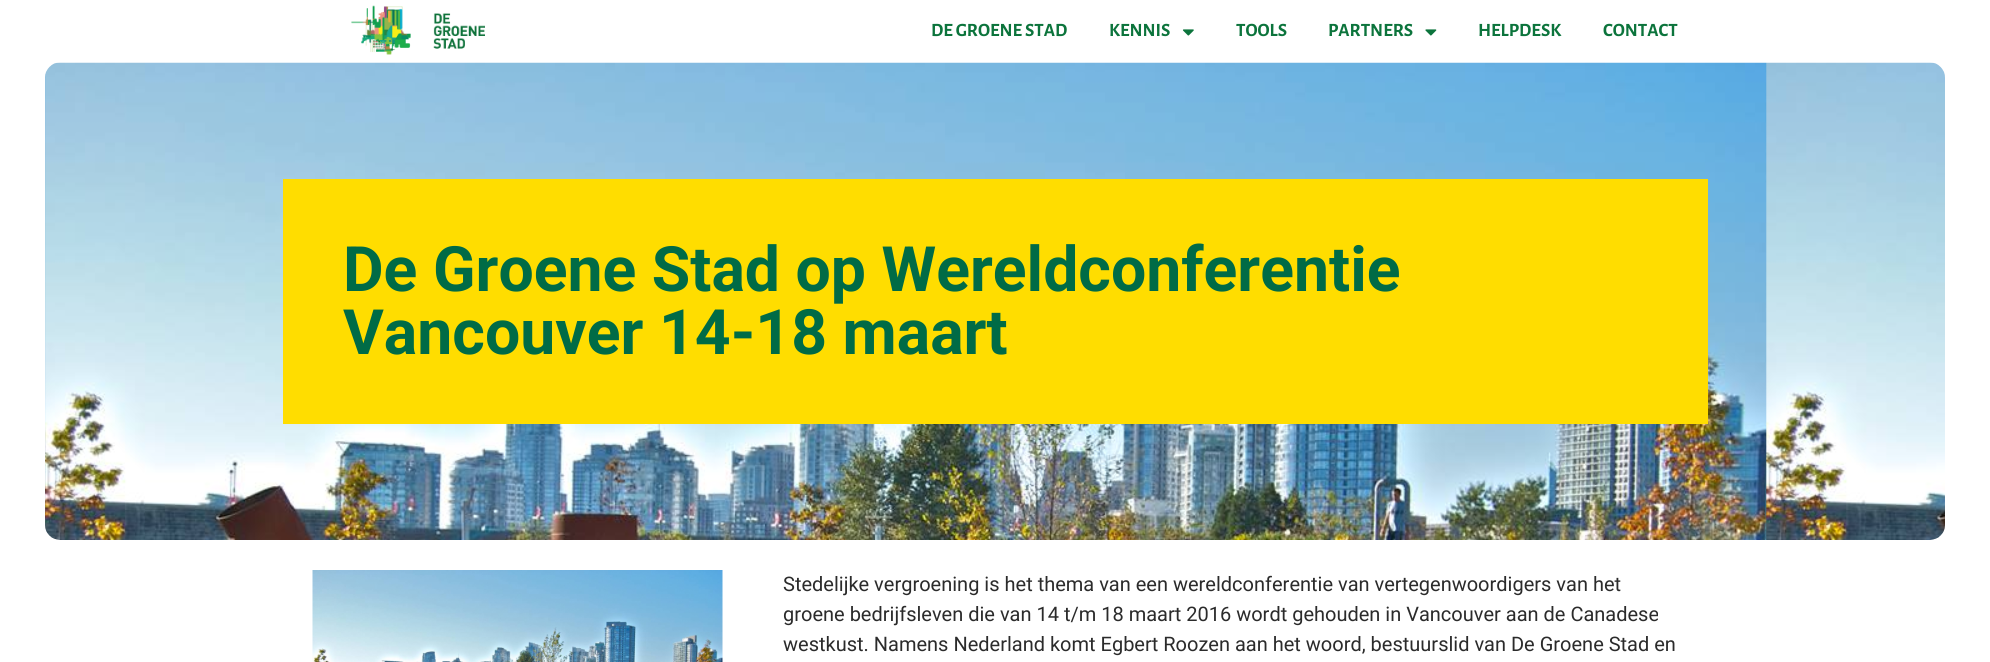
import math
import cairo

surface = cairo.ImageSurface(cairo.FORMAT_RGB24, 1990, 662)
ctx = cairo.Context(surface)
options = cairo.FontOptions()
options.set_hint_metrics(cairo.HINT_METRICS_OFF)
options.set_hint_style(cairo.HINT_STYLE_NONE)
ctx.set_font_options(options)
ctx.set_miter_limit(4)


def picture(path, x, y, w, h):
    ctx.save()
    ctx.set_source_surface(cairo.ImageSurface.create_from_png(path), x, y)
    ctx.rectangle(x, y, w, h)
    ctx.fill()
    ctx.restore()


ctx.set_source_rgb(1, 1, 1)
ctx.paint()
picture("img1.png", 351, 5, 134, 50)
ctx.select_font_face("Alegreya Sans", cairo.FONT_SLANT_NORMAL, cairo.FONT_WEIGHT_BOLD)
ctx.set_font_size(18.75)
ctx.set_source_rgb(0.047, 0.455, 0.235)
ctx.move_to(931, 36)
ctx.show_text("DE GROENE STAD")
ctx.move_to(1109, 36)
ctx.show_text("KENNIS")
picture("img2.png", 1182, 29, 12, 7)
ctx.move_to(1236, 36)
ctx.show_text("TOOLS")
ctx.move_to(1328, 36)
ctx.show_text("PARTNERS")
picture("img3.png", 1425, 29, 12, 7)
ctx.move_to(1478, 36)
ctx.show_text("HELPDESK")
ctx.move_to(1603, 36)
ctx.show_text("CONTACT")
picture("img4.png", 45, 62, 1900, 478)
ctx.set_source_rgb(1, 0.867, 0)
ctx.rectangle(283, 179, 1425, 245)
ctx.fill()
ctx.select_font_face("Roboto", cairo.FONT_SLANT_NORMAL, cairo.FONT_WEIGHT_BOLD)
ctx.set_font_size(62.5)
ctx.set_source_rgb(0, 0.42, 0.275)
ctx.move_to(343, 291)
ctx.show_text("De Groene Stad op Wereldconferentie")
ctx.move_to(343, 354)
ctx.show_text("Vancouver 14-18 maart")
picture("img5.png", 312, 570, 411, 92)
ctx.select_font_face("Roboto")
ctx.set_font_size(20)
ctx.set_source_rgb(0.169, 0.169, 0.169)
ctx.move_to(783, 591)
ctx.show_text("Stedelijke vergroening is het thema van een wereldconferentie van vertegenwoordigers van het")
ctx.move_to(783, 621)
ctx.show_text("groene bedrijfsleven die van 14 t/m 18 maart 2016 wordt gehouden in Vancouver aan de Canadese")
ctx.move_to(783, 651)
ctx.show_text("westkust. Namens Nederland komt Egbert Roozen aan het woord, bestuurslid van De Groene Stad en")
surface.write_to_png("page.png")
